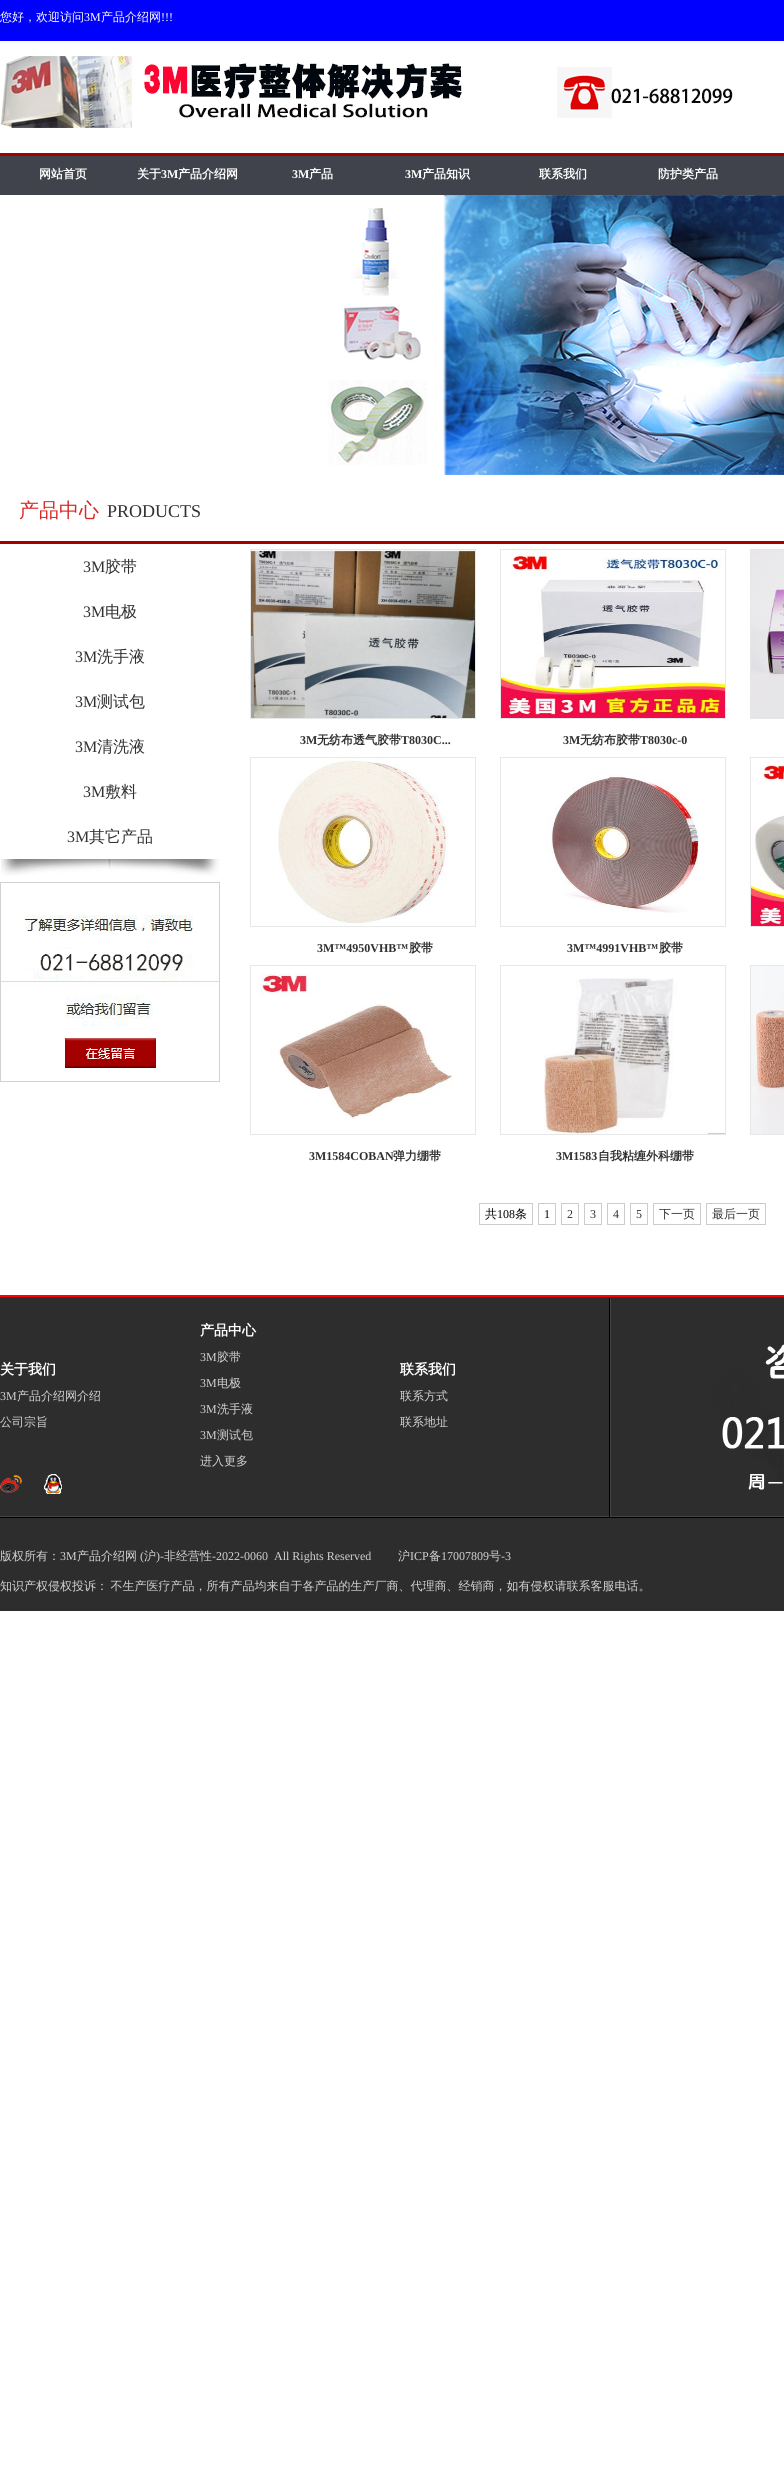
import math
import cairo

surface = cairo.ImageSurface(cairo.FORMAT_RGB24, 784, 2490)
ctx = cairo.Context(surface)
options = cairo.FontOptions()
options.set_hint_metrics(cairo.HINT_METRICS_OFF)
options.set_hint_style(cairo.HINT_STYLE_NONE)
ctx.set_font_options(options)
ctx.set_miter_limit(4)


def spaced_text(x, y, s, letter, word):
    ctx.move_to(x, y)
    for ch in s:
        ctx.show_text(ch)
        ctx.rel_move_to(letter + word * (ch == ' '), 0)


def picture(path, x, y, w, h):
    ctx.save()
    ctx.set_source_surface(cairo.ImageSurface.create_from_png(path), x, y)
    ctx.rectangle(x, y, w, h)
    ctx.fill()
    ctx.restore()


ctx.set_source_rgb(1, 1, 1)
ctx.paint()
ctx.set_source_rgb(0, 0, 1)
ctx.rectangle(0, 0, 784, 41)
ctx.fill()
ctx.select_font_face("WenQuanYi Zen Hei Medium")
ctx.set_font_size(12)
ctx.set_source_rgb(1, 1, 1)
ctx.move_to(0, 21)
ctx.show_text("您好，欢迎访问")
ctx.select_font_face("Liberation Serif")
ctx.move_to(84, 21)
ctx.show_text("3M")
ctx.select_font_face("WenQuanYi Zen Hei Medium")
ctx.move_to(101, 21)
ctx.show_text("产品介绍网")
ctx.select_font_face("Liberation Serif")
ctx.move_to(161, 21)
ctx.show_text("!!!")
picture("img1.png", 0, 56, 462, 72)
picture("img2.png", 557, 67, 176, 51)
picture("img3.png", 0, 153, 784, 42)
ctx.select_font_face("WenQuanYi Zen Hei", cairo.FONT_SLANT_NORMAL, cairo.FONT_WEIGHT_BOLD)
ctx.move_to(39, 178)
ctx.show_text("网站首页")
ctx.move_to(137, 178)
ctx.show_text("关于")
ctx.select_font_face("Liberation Serif", cairo.FONT_SLANT_NORMAL, cairo.FONT_WEIGHT_BOLD)
ctx.move_to(161, 178)
ctx.show_text("3M")
ctx.select_font_face("WenQuanYi Zen Hei", cairo.FONT_SLANT_NORMAL, cairo.FONT_WEIGHT_BOLD)
ctx.move_to(178, 178)
ctx.show_text("产品介绍网")
ctx.select_font_face("Liberation Serif", cairo.FONT_SLANT_NORMAL, cairo.FONT_WEIGHT_BOLD)
ctx.move_to(292, 178)
ctx.show_text("3M")
ctx.select_font_face("WenQuanYi Zen Hei", cairo.FONT_SLANT_NORMAL, cairo.FONT_WEIGHT_BOLD)
ctx.move_to(309, 178)
ctx.show_text("产品")
ctx.select_font_face("Liberation Serif", cairo.FONT_SLANT_NORMAL, cairo.FONT_WEIGHT_BOLD)
ctx.move_to(405, 178)
ctx.show_text("3M")
ctx.select_font_face("WenQuanYi Zen Hei", cairo.FONT_SLANT_NORMAL, cairo.FONT_WEIGHT_BOLD)
ctx.move_to(422, 178)
ctx.show_text("产品知识")
ctx.move_to(539, 178)
ctx.show_text("联系我们")
ctx.move_to(658, 178)
ctx.show_text("防护类产品")
picture("img4.png", 327, 195, 457, 280)
ctx.set_source_rgb(0.643, 0, 0)
ctx.rectangle(0, 541, 784, 3)
ctx.fill()
ctx.select_font_face("WenQuanYi Zen Hei Medium")
ctx.set_font_size(20)
ctx.set_source_rgb(0.843, 0.153, 0.153)
ctx.move_to(19, 517)
ctx.show_text("产品中心")
ctx.select_font_face("Liberation Serif")
ctx.set_font_size(18)
ctx.set_source_rgb(0.192, 0.192, 0.192)
ctx.move_to(107, 517)
ctx.show_text("PRODUCTS")
ctx.set_font_size(16)
ctx.move_to(83, 572)
ctx.show_text("3M")
ctx.select_font_face("WenQuanYi Zen Hei Medium")
ctx.move_to(105, 572)
ctx.show_text("胶带")
ctx.select_font_face("Liberation Serif")
ctx.move_to(83, 617)
ctx.show_text("3M")
ctx.select_font_face("WenQuanYi Zen Hei Medium")
ctx.move_to(105, 617)
ctx.show_text("电极")
ctx.select_font_face("Liberation Serif")
ctx.move_to(75, 662)
ctx.show_text("3M")
ctx.select_font_face("WenQuanYi Zen Hei Medium")
ctx.move_to(97, 662)
ctx.show_text("洗手液")
ctx.select_font_face("Liberation Serif")
ctx.move_to(75, 707)
ctx.show_text("3M")
ctx.select_font_face("WenQuanYi Zen Hei Medium")
ctx.move_to(97, 707)
ctx.show_text("测试包")
ctx.select_font_face("Liberation Serif")
ctx.move_to(75, 752)
ctx.show_text("3M")
ctx.select_font_face("WenQuanYi Zen Hei Medium")
ctx.move_to(97, 752)
ctx.show_text("清洗液")
ctx.select_font_face("Liberation Serif")
ctx.move_to(83, 797)
ctx.show_text("3M")
ctx.select_font_face("WenQuanYi Zen Hei Medium")
ctx.move_to(105, 797)
ctx.show_text("敷料")
ctx.select_font_face("Liberation Serif")
ctx.move_to(67, 842)
ctx.show_text("3M")
ctx.select_font_face("WenQuanYi Zen Hei Medium")
ctx.move_to(89, 842)
ctx.show_text("其它产品")
picture("img5.png", 1, 859, 219, 17)
picture("img6.png", 1, 915, 218, 112)
ctx.rectangle(0.5, 882.5, 219, 199)
ctx.set_source_rgb(0.824, 0.824, 0.824)
ctx.set_line_width(1)
ctx.stroke()
picture("img7.png", 65, 1038, 91, 30)
ctx.rectangle(750.5, 549.5, 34, 169)
ctx.set_source_rgb(0.902, 0.906, 0.906)
ctx.stroke()
picture("img8.png", 751, 550, 33, 168)
ctx.rectangle(250.5, 549.5, 225, 169)
ctx.stroke()
picture("img9.png", 251, 550, 224, 168)
ctx.select_font_face("Liberation Serif", cairo.FONT_SLANT_NORMAL, cairo.FONT_WEIGHT_BOLD)
ctx.set_font_size(12)
ctx.set_source_rgb(0.192, 0.192, 0.192)
ctx.move_to(300, 744)
ctx.show_text("3M")
ctx.select_font_face("WenQuanYi Zen Hei", cairo.FONT_SLANT_NORMAL, cairo.FONT_WEIGHT_BOLD)
ctx.move_to(317, 744)
ctx.show_text("无纺布透气胶带")
ctx.select_font_face("Liberation Serif", cairo.FONT_SLANT_NORMAL, cairo.FONT_WEIGHT_BOLD)
ctx.move_to(401, 744)
ctx.show_text("T8030C...")
ctx.rectangle(500.5, 549.5, 225, 169)
ctx.set_source_rgb(0.902, 0.906, 0.906)
ctx.stroke()
picture("img10.png", 501, 550, 224, 168)
ctx.set_source_rgb(0.192, 0.192, 0.192)
ctx.move_to(563, 744)
ctx.show_text("3M")
ctx.select_font_face("WenQuanYi Zen Hei", cairo.FONT_SLANT_NORMAL, cairo.FONT_WEIGHT_BOLD)
ctx.move_to(580, 744)
ctx.show_text("无纺布胶带")
ctx.select_font_face("Liberation Serif", cairo.FONT_SLANT_NORMAL, cairo.FONT_WEIGHT_BOLD)
ctx.move_to(640, 744)
ctx.show_text("T8030c-0")
ctx.rectangle(750.5, 757.5, 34, 169)
ctx.set_source_rgb(0.902, 0.906, 0.906)
ctx.stroke()
picture("img11.png", 751, 765, 33, 161)
ctx.rectangle(250.5, 757.5, 225, 169)
ctx.stroke()
picture("img12.png", 278, 758, 170, 168)
ctx.set_source_rgb(0.192, 0.192, 0.192)
ctx.move_to(317, 952)
ctx.show_text("3M™4950VHB™")
ctx.select_font_face("WenQuanYi Zen Hei", cairo.FONT_SLANT_NORMAL, cairo.FONT_WEIGHT_BOLD)
ctx.move_to(409, 952)
ctx.show_text("胶带")
ctx.rectangle(500.5, 757.5, 225, 169)
ctx.set_source_rgb(0.902, 0.906, 0.906)
ctx.stroke()
picture("img13.png", 546, 775, 153, 138)
ctx.select_font_face("Liberation Serif", cairo.FONT_SLANT_NORMAL, cairo.FONT_WEIGHT_BOLD)
ctx.set_source_rgb(0.192, 0.192, 0.192)
ctx.move_to(567, 952)
ctx.show_text("3M™4991VHB™")
ctx.select_font_face("WenQuanYi Zen Hei", cairo.FONT_SLANT_NORMAL, cairo.FONT_WEIGHT_BOLD)
ctx.move_to(659, 952)
ctx.show_text("胶带")
ctx.rectangle(750.5, 965.5, 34, 169)
ctx.set_source_rgb(0.902, 0.906, 0.906)
ctx.stroke()
picture("img14.png", 751, 966, 33, 168)
ctx.rectangle(250.5, 965.5, 225, 169)
ctx.stroke()
picture("img15.png", 260, 973, 192, 150)
ctx.select_font_face("Liberation Serif", cairo.FONT_SLANT_NORMAL, cairo.FONT_WEIGHT_BOLD)
ctx.set_source_rgb(0.192, 0.192, 0.192)
ctx.move_to(309, 1160)
ctx.show_text("3M1584COBAN")
ctx.select_font_face("WenQuanYi Zen Hei", cairo.FONT_SLANT_NORMAL, cairo.FONT_WEIGHT_BOLD)
ctx.move_to(393, 1160)
ctx.show_text("弹力绷带")
ctx.rectangle(500.5, 965.5, 225, 169)
ctx.set_source_rgb(0.902, 0.906, 0.906)
ctx.stroke()
picture("img16.png", 543, 978, 182, 156)
ctx.select_font_face("Liberation Serif", cairo.FONT_SLANT_NORMAL, cairo.FONT_WEIGHT_BOLD)
ctx.set_source_rgb(0.192, 0.192, 0.192)
ctx.move_to(556, 1160)
ctx.show_text("3M1583")
ctx.select_font_face("WenQuanYi Zen Hei", cairo.FONT_SLANT_NORMAL, cairo.FONT_WEIGHT_BOLD)
ctx.move_to(598, 1160)
ctx.show_text("自我粘缠外科绷带")
ctx.rectangle(479.5, 1203.5, 53, 21)
ctx.set_source_rgb(0.8, 0.8, 0.8)
ctx.stroke()
ctx.select_font_face("WenQuanYi Zen Hei Medium")
ctx.set_source_rgb(0, 0, 0)
ctx.move_to(485, 1218)
ctx.show_text("共")
ctx.select_font_face("Liberation Serif")
ctx.move_to(497, 1218)
ctx.show_text("108")
ctx.select_font_face("WenQuanYi Zen Hei Medium")
ctx.move_to(515, 1218)
ctx.show_text("条")
ctx.rectangle(538.5, 1203.5, 17, 21)
ctx.set_source_rgb(0.8, 0.8, 0.8)
ctx.stroke()
ctx.select_font_face("Liberation Serif")
ctx.set_source_rgb(0, 0, 0)
ctx.move_to(544, 1218)
ctx.show_text("1")
ctx.rectangle(561.5, 1203.5, 17, 21)
ctx.set_source_rgb(0.8, 0.8, 0.8)
ctx.stroke()
ctx.set_source_rgb(0.192, 0.192, 0.192)
ctx.move_to(567, 1218)
ctx.show_text("2")
ctx.rectangle(584.5, 1203.5, 17, 21)
ctx.set_source_rgb(0.8, 0.8, 0.8)
ctx.stroke()
ctx.set_source_rgb(0.192, 0.192, 0.192)
ctx.move_to(590, 1218)
ctx.show_text("3")
ctx.rectangle(607.5, 1203.5, 17, 21)
ctx.set_source_rgb(0.8, 0.8, 0.8)
ctx.stroke()
ctx.set_source_rgb(0.192, 0.192, 0.192)
ctx.move_to(613, 1218)
ctx.show_text("4")
ctx.rectangle(630.5, 1203.5, 17, 21)
ctx.set_source_rgb(0.8, 0.8, 0.8)
ctx.stroke()
ctx.set_source_rgb(0.192, 0.192, 0.192)
ctx.move_to(636, 1218)
ctx.show_text("5")
ctx.rectangle(653.5, 1203.5, 47, 21)
ctx.set_source_rgb(0.8, 0.8, 0.8)
ctx.stroke()
ctx.select_font_face("WenQuanYi Zen Hei Medium")
ctx.set_source_rgb(0.192, 0.192, 0.192)
ctx.move_to(659, 1218)
ctx.show_text("下一页")
ctx.rectangle(706.5, 1203.5, 59, 21)
ctx.set_source_rgb(0.8, 0.8, 0.8)
ctx.stroke()
ctx.set_source_rgb(0.192, 0.192, 0.192)
ctx.move_to(712, 1218)
ctx.show_text("最后一页")
picture("img17.png", 0, 1297, 784, 221)
ctx.set_source_rgb(1, 0, 0)
ctx.rectangle(0, 1295, 784, 2)
ctx.fill()
picture("img18.png", 609, 1298, 174, 219)
ctx.select_font_face("WenQuanYi Zen Hei", cairo.FONT_SLANT_NORMAL, cairo.FONT_WEIGHT_BOLD)
ctx.set_font_size(14)
ctx.set_source_rgb(1, 1, 1)
ctx.move_to(0, 1374)
ctx.show_text("关于我们")
ctx.select_font_face("Liberation Serif")
ctx.set_font_size(12)
ctx.set_source_rgb(0.824, 0.824, 0.824)
ctx.move_to(0, 1400)
ctx.show_text("3M")
ctx.select_font_face("WenQuanYi Zen Hei Medium")
ctx.move_to(17, 1400)
ctx.show_text("产品介绍网介绍")
ctx.move_to(0, 1426)
ctx.show_text("公司宗旨")
ctx.select_font_face("WenQuanYi Zen Hei", cairo.FONT_SLANT_NORMAL, cairo.FONT_WEIGHT_BOLD)
ctx.set_font_size(14)
ctx.set_source_rgb(1, 1, 1)
ctx.move_to(200, 1335)
ctx.show_text("产品中心")
ctx.select_font_face("Liberation Serif")
ctx.set_font_size(12)
ctx.set_source_rgb(0.824, 0.824, 0.824)
ctx.move_to(200, 1361)
ctx.show_text("3M")
ctx.select_font_face("WenQuanYi Zen Hei Medium")
ctx.move_to(217, 1361)
ctx.show_text("胶带")
ctx.select_font_face("Liberation Serif")
ctx.move_to(200, 1387)
ctx.show_text("3M")
ctx.select_font_face("WenQuanYi Zen Hei Medium")
ctx.move_to(217, 1387)
ctx.show_text("电极")
ctx.select_font_face("Liberation Serif")
ctx.move_to(200, 1413)
ctx.show_text("3M")
ctx.select_font_face("WenQuanYi Zen Hei Medium")
ctx.move_to(217, 1413)
ctx.show_text("洗手液")
ctx.select_font_face("Liberation Serif")
ctx.move_to(200, 1439)
ctx.show_text("3M")
ctx.select_font_face("WenQuanYi Zen Hei Medium")
ctx.move_to(217, 1439)
ctx.show_text("测试包")
ctx.move_to(200, 1465)
ctx.show_text("进入更多")
ctx.select_font_face("WenQuanYi Zen Hei", cairo.FONT_SLANT_NORMAL, cairo.FONT_WEIGHT_BOLD)
ctx.set_font_size(14)
ctx.set_source_rgb(1, 1, 1)
ctx.move_to(400, 1374)
ctx.show_text("联系我们")
ctx.select_font_face("WenQuanYi Zen Hei Medium")
ctx.set_font_size(12)
ctx.set_source_rgb(0.824, 0.824, 0.824)
ctx.move_to(400, 1400)
ctx.show_text("联系方式")
ctx.move_to(400, 1426)
ctx.show_text("联系地址")
picture("img19.png", 722, 1344, 62, 146)
picture("img20.png", 0, 1475, 22, 18)
picture("img21.png", 44, 1474, 18, 20)
ctx.set_source_rgb(0.176, 0.176, 0.176)
ctx.rectangle(0, 1518, 784, 93)
ctx.fill()
ctx.set_source_rgb(0.824, 0.824, 0.824)
ctx.move_to(0, 1560)
ctx.show_text("版权所有：")
ctx.select_font_face("Liberation Serif")
ctx.move_to(60, 1560)
ctx.show_text("3M")
ctx.select_font_face("WenQuanYi Zen Hei Medium")
ctx.move_to(77, 1560)
ctx.show_text("产品介绍网")
ctx.select_font_face("Liberation Serif")
ctx.move_to(140, 1560)
ctx.show_text("(")
ctx.select_font_face("WenQuanYi Zen Hei Medium")
ctx.move_to(144, 1560)
ctx.show_text("沪")
ctx.select_font_face("Liberation Serif")
ctx.move_to(156, 1560)
ctx.show_text(")-")
ctx.select_font_face("WenQuanYi Zen Hei Medium")
ctx.move_to(164, 1560)
ctx.show_text("非经营性")
ctx.select_font_face("Liberation Serif")
ctx.move_to(212, 1560)
ctx.show_text("-2022-0060  All Rights Reserved")
ctx.select_font_face("WenQuanYi Zen Hei Medium")
ctx.move_to(398, 1560)
ctx.show_text("沪")
ctx.select_font_face("Liberation Serif")
ctx.move_to(410, 1560)
ctx.show_text("ICP")
ctx.select_font_face("WenQuanYi Zen Hei Medium")
ctx.move_to(429, 1560)
ctx.show_text("备")
ctx.select_font_face("Liberation Serif")
ctx.move_to(441, 1560)
ctx.show_text("17007809")
ctx.select_font_face("WenQuanYi Zen Hei Medium")
ctx.move_to(489, 1560)
ctx.show_text("号")
ctx.select_font_face("Liberation Serif")
ctx.move_to(501, 1560)
ctx.show_text("-3")
ctx.select_font_face("WenQuanYi Zen Hei Medium")
spaced_text(0, 1590, "知识产权侵权投诉： 不生产医疗产品，所有产品均来自于各产品的生产厂商、代理商、经销商，如有侵权请联系客服电话。", 0, -1)
surface.write_to_png("page.png")
